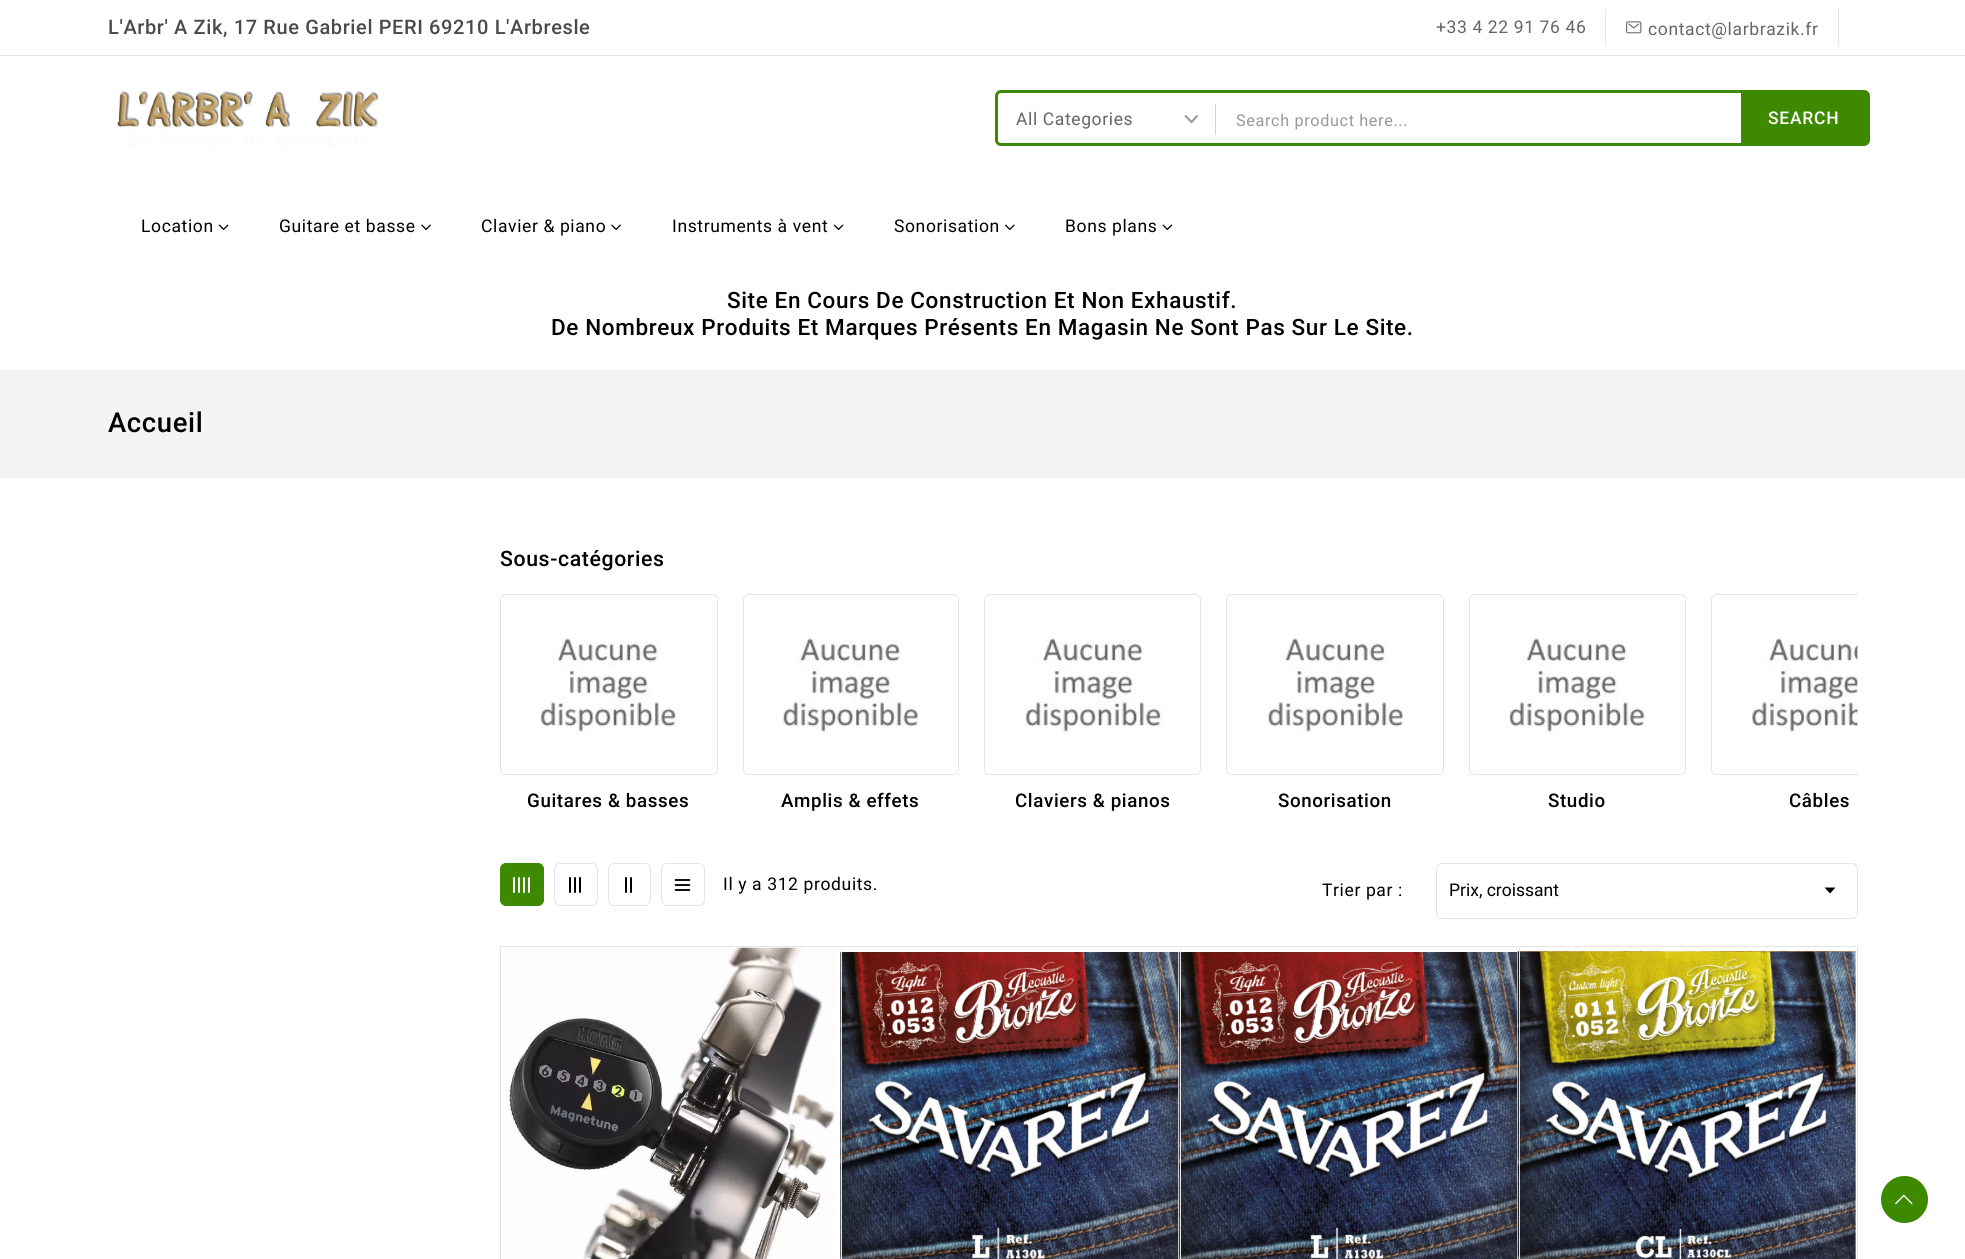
import math
import cairo

surface = cairo.ImageSurface(cairo.FORMAT_RGB24, 1965, 1259)
ctx = cairo.Context(surface)
options = cairo.FontOptions()
options.set_hint_metrics(cairo.HINT_METRICS_OFF)
options.set_hint_style(cairo.HINT_STYLE_NONE)
ctx.set_font_options(options)
ctx.set_miter_limit(4)


def spaced_text(x, y, s, letter, word):
    ctx.move_to(x, y)
    for ch in s:
        ctx.show_text(ch)
        ctx.rel_move_to(letter + word * (ch == ' '), 0)


def round_rect(x, y, w, h, r):
    ctx.new_sub_path()
    for i, (u, v) in enumerate([(x + w - r, y + h - r), (x + r, y + h - r), (x + r, y + r), (x + w - r, y + r)]):
        ctx.arc(u, v, r, i * math.pi / 2, (i + 1) * math.pi / 2)
    ctx.close_path()


def picture(path, x, y, w, h):
    ctx.save()
    ctx.set_source_surface(cairo.ImageSurface.create_from_png(path), x, y)
    ctx.rectangle(x, y, w, h)
    ctx.fill()
    ctx.restore()


ctx.set_source_rgb(1, 1, 1)
ctx.paint()
ctx.set_source_rgb(0.898, 0.898, 0.898)
ctx.rectangle(0, 55, 1965, 1)
ctx.fill()
ctx.select_font_face("Roboto Medium")
ctx.set_font_size(20)
ctx.set_source_rgb(0.29, 0.29, 0.29)
spaced_text(108, 34, "L'Arbr' A Zik, 17 Rue Gabriel PERI 69210 L'Arbresle", 0.62, 0)
ctx.set_source_rgb(0.898, 0.898, 0.898)
ctx.rectangle(1605, 9, 1, 37)
ctx.fill()
ctx.select_font_face("Roboto")
ctx.set_font_size(17.5)
ctx.set_source_rgb(0.4, 0.4, 0.4)
spaced_text(1436, 33, "+33 4 22 91 76 46", 0.62, 0)
ctx.set_source_rgb(0.898, 0.898, 0.898)
ctx.rectangle(1838, 9, 1, 37)
ctx.fill()
picture("img1.png", 1626, 21, 16, 13)
ctx.set_source_rgb(0.4, 0.4, 0.4)
spaced_text(1648, 35, "contact@larbrazik.fr", 0.62, 0)
picture("img2.png", 117, 91, 262, 61)
round_rect(996.5, 91.5, 872, 53, 4.5)
ctx.set_source_rgb(0.239, 0.537, 0)
ctx.set_line_width(3)
ctx.stroke()
ctx.new_path()
ctx.move_to(1185, 115.5)
ctx.line_to(1191.5, 122)
ctx.line_to(1197.5, 115.5)
ctx.set_source_rgb(0.6, 0.6, 0.6)
ctx.set_line_width(2.1)
ctx.stroke()
ctx.set_source_rgb(0.4, 0.4, 0.4)
spaced_text(1016, 125, "All Categories", 0.62, 0)
ctx.set_source_rgb(0.827, 0.827, 0.827)
ctx.rectangle(1215, 104, 1, 31)
ctx.fill()
ctx.set_font_size(16.25)
ctx.set_source_rgb(0.6, 0.6, 0.6)
spaced_text(1236, 126, "Search product here...", 0.62, 0)
ctx.set_source_rgb(0.239, 0.537, 0)
ctx.new_path()
ctx.move_to(1741, 91)
ctx.line_to(1864, 91)
ctx.curve_to(1866, 91, 1868, 93, 1868, 95)
ctx.line_to(1868, 141)
ctx.curve_to(1868, 143, 1866, 145, 1864, 145)
ctx.line_to(1741, 145)
ctx.close_path()
ctx.fill()
ctx.select_font_face("Roboto Medium")
ctx.set_font_size(17.5)
ctx.set_source_rgb(1, 1, 1)
spaced_text(1768, 124, "SEARCH", 0.75, 0)
ctx.select_font_face("Roboto")
ctx.set_source_rgb(0, 0, 0)
spaced_text(141, 232, "Location", 0.62, 0)
picture("img3.png", 218, 224, 11, 7)
spaced_text(279, 232, "Guitare et basse", 0.62, 0)
picture("img4.png", 421, 224, 10, 7)
spaced_text(481, 232, "Clavier & piano", 0.62, 0)
picture("img4.png", 611, 224, 10, 7)
spaced_text(672, 232, "Instruments à vent", 0.62, 0)
picture("img3.png", 833, 224, 11, 7)
spaced_text(894, 232, "Sonorisation", 0.62, 0)
picture("img5.png", 1005, 224, 10, 7)
spaced_text(1065, 232, "Bons plans", 0.62, 0)
picture("img6.png", 1162, 224, 11, 7)
ctx.select_font_face("Roboto Medium")
ctx.set_font_size(22.5)
spaced_text(727, 308, "Site En Cours De Construction Et Non Exhaustif.", 0.62, 0)
spaced_text(551, 335, "De Nombreux Produits Et Marques Présents En Magasin Ne Sont Pas Sur Le Site.", 0.62, 0)
ctx.set_source_rgb(0.957, 0.957, 0.957)
ctx.rectangle(0, 370, 1965, 108)
ctx.fill()
ctx.set_font_size(27.5)
ctx.set_source_rgb(0, 0, 0)
spaced_text(108, 432, "Accueil", 0.62, 0)
ctx.set_font_size(21.25)
spaced_text(500, 566, "Sous-catégories", 0.62, 0)
round_rect(500.5, 594.5, 217, 180, 5.5)
ctx.set_source_rgb(0.898, 0.898, 0.898)
ctx.set_line_width(1)
ctx.stroke()
picture("img7.png", 540, 638, 139, 95)
ctx.set_font_size(18.75)
ctx.set_source_rgb(0, 0, 0)
spaced_text(527, 807, "Guitares & basses", 0.62, 0)
round_rect(743.5, 594.5, 215, 180, 5.5)
ctx.set_source_rgb(0.898, 0.898, 0.898)
ctx.stroke()
picture("img8.png", 783, 638, 138, 95)
ctx.set_source_rgb(0, 0, 0)
spaced_text(781, 807, "Amplis & effets", 0.62, 0)
round_rect(984.5, 594.5, 216, 180, 5.5)
ctx.set_source_rgb(0.898, 0.898, 0.898)
ctx.stroke()
picture("img9.png", 1025, 638, 139, 95)
ctx.set_source_rgb(0, 0, 0)
spaced_text(1015, 807, "Claviers & pianos", 0.62, 0)
round_rect(1226.5, 594.5, 217, 180, 5.5)
ctx.set_source_rgb(0.898, 0.898, 0.898)
ctx.stroke()
picture("img10.png", 1268, 638, 138, 95)
ctx.set_source_rgb(0, 0, 0)
spaced_text(1278, 807, "Sonorisation", 0.62, 0)
round_rect(1469.5, 594.5, 216, 180, 5.5)
ctx.set_source_rgb(0.898, 0.898, 0.898)
ctx.stroke()
picture("img11.png", 1509, 638, 138, 95)
ctx.set_source_rgb(0, 0, 0)
spaced_text(1548, 807, "Studio", 0.62, 0)
ctx.save()
ctx.rectangle(500, 594, 1358, 231)
ctx.clip()
round_rect(1711.5, 594.5, 216, 180, 5.5)
ctx.set_source_rgb(0.898, 0.898, 0.898)
ctx.stroke()
ctx.restore()
picture("img12.png", 1751, 638, 107, 95)
spaced_text(1789, 807, "Câbles", 0.62, 0)
ctx.set_source_rgb(0.239, 0.537, 0)
round_rect(500.5, 863.5, 43, 42, 5.5)
ctx.fill_preserve()
ctx.stroke()
picture("img13.png", 513, 877, 17, 16)
round_rect(554.5, 863.5, 43, 42, 5.5)
ctx.set_source_rgb(0.898, 0.898, 0.898)
ctx.stroke()
ctx.set_source_rgb(0, 0, 0)
round_rect(569, 877, 2, 16, 1)
ctx.fill()
round_rect(574, 877, 2, 16, 1)
ctx.fill()
round_rect(579, 877, 2, 16, 1)
ctx.fill()
round_rect(608.5, 863.5, 42, 42, 5.5)
ctx.set_source_rgb(0.898, 0.898, 0.898)
ctx.stroke()
ctx.set_source_rgb(0, 0, 0)
round_rect(625, 877, 2, 16, 1)
ctx.fill()
round_rect(630, 877, 2, 16, 1)
ctx.fill()
round_rect(661.5, 863.5, 43, 42, 5.5)
ctx.set_source_rgb(0.898, 0.898, 0.898)
ctx.stroke()
picture("img14.png", 674, 879, 17, 12)
ctx.select_font_face("Roboto")
ctx.set_font_size(17.5)
ctx.set_source_rgb(0, 0, 0)
spaced_text(723, 890, "Il y a 312 produits.", 0.62, 0)
spaced_text(1322, 896, "Trier par :", 0.62, 0)
round_rect(1436.5, 863.5, 421, 55, 5.5)
ctx.set_source_rgb(0.898, 0.898, 0.898)
ctx.stroke()
ctx.set_source_rgb(0, 0, 0)
ctx.move_to(1449, 896)
ctx.show_text("Prix, croissant")
ctx.new_path()
ctx.move_to(1824.5, 887.5)
ctx.line_to(1835.5, 887.5)
ctx.line_to(1830, 893.5)
ctx.close_path()
ctx.fill()
ctx.rectangle(500.5, 946.5, 1357, 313)
ctx.set_source_rgb(0.898, 0.898, 0.898)
ctx.stroke()
picture("img15.png", 506, 947, 329, 312)
picture("img16.png", 840, 952, 339, 307)
ctx.rectangle(841, 948, 1, 311)
ctx.fill()
picture("img17.png", 1178, 952, 340, 307)
ctx.rectangle(1180, 948, 1, 311)
ctx.fill()
picture("img18.png", 1517, 951, 339, 308)
ctx.rectangle(1519, 948, 1, 311)
ctx.fill()
ctx.set_source_rgb(0.239, 0.537, 0)
ctx.arc(1904.5, 1199.5, 23.5, 0, 2 * math.pi)
ctx.fill()
picture("img19.png", 1895, 1194, 18, 11)
surface.write_to_png("page.png")
